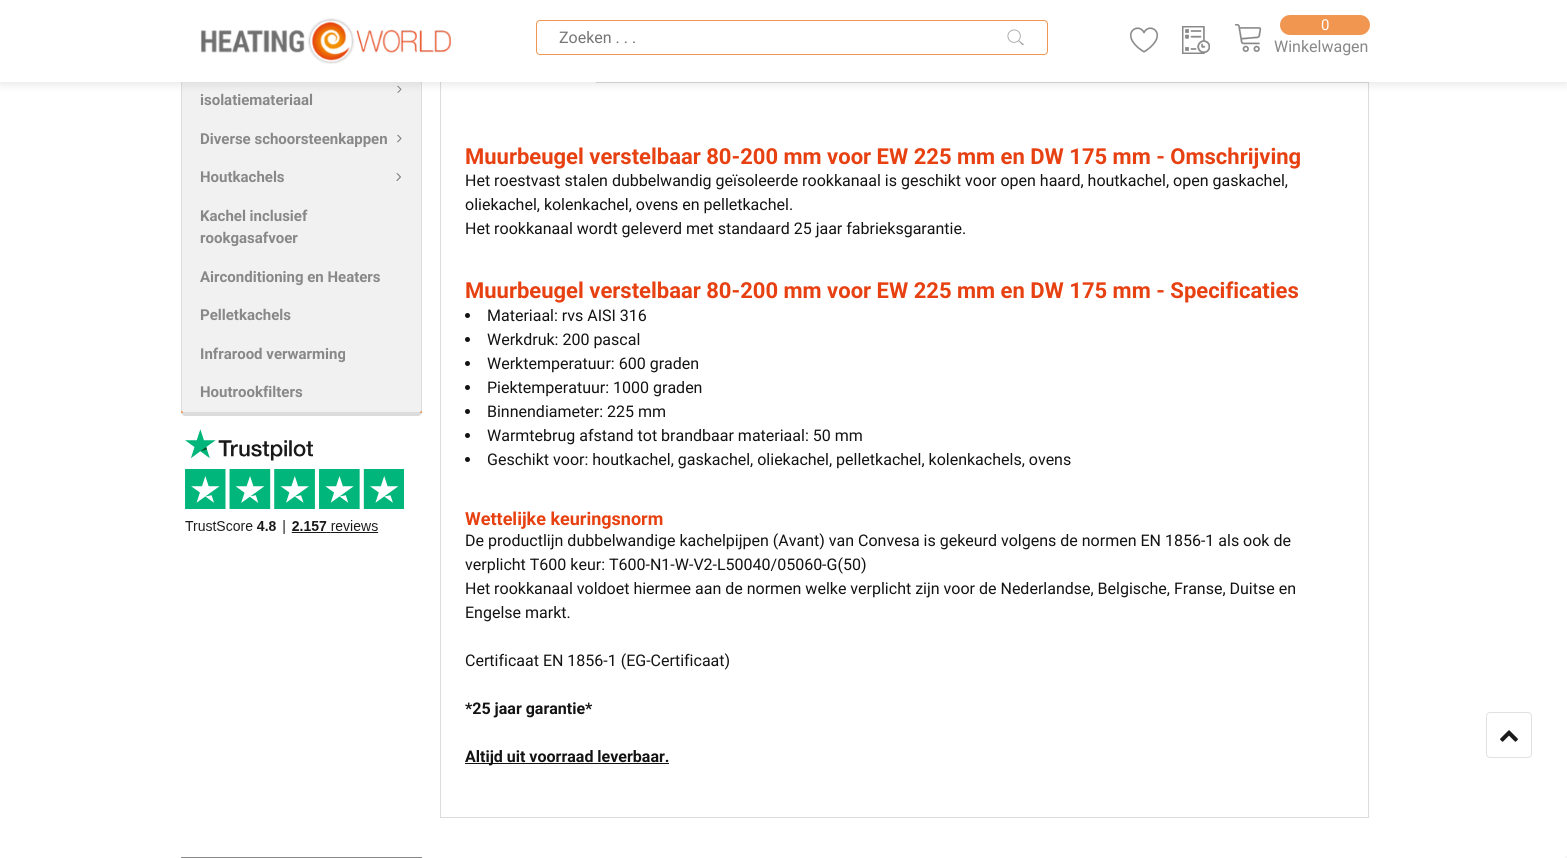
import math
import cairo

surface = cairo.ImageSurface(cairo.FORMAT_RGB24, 1567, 858)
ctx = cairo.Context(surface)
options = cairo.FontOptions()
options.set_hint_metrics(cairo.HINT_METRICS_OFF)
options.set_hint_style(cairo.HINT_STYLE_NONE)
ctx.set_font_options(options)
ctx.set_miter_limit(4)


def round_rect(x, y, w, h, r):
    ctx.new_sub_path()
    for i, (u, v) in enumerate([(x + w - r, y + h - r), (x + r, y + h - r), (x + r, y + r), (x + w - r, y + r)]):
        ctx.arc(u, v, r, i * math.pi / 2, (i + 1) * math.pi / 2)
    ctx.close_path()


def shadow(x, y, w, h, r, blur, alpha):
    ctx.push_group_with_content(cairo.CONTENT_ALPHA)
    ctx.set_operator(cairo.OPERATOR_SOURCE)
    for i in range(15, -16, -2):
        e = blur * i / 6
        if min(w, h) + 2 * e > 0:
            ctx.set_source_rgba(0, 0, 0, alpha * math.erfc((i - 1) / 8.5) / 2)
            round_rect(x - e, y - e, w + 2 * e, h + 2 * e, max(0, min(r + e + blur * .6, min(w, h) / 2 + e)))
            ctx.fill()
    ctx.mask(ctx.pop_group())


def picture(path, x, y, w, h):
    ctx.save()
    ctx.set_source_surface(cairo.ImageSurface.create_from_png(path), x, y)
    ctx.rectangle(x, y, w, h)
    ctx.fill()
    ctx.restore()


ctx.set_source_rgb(1, 1, 1)
ctx.paint()
ctx.set_source_rgb(0.863, 0.863, 0.863)
ctx.new_path()
ctx.move_to(181, 409)
ctx.line_to(181, 412)
ctx.curve_to(181, 414, 183, 416, 185, 416)
ctx.line_to(418, 416)
ctx.curve_to(420, 416, 422, 414, 422, 412)
ctx.line_to(422, 409)
ctx.curve_to(422, 411, 420, 413, 418, 413)
ctx.line_to(185, 413)
ctx.curve_to(183, 413, 181, 411, 181, 409)
ctx.close_path()
ctx.fill()
ctx.set_source_rgb(0.941, 0.588, 0.314)
ctx.rectangle(181, 409, 241, 4)
ctx.fill()
ctx.set_source_rgb(0.945, 0.945, 0.945)
ctx.new_path()
ctx.move_to(181, -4)
ctx.line_to(422, -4)
ctx.line_to(422, 409)
ctx.curve_to(422, 411, 420, 413, 418, 413)
ctx.line_to(185, 413)
ctx.curve_to(183, 413, 181, 411, 181, 409)
ctx.close_path()
ctx.fill()
ctx.set_source_rgb(0.863, 0.863, 0.863)
ctx.set_fill_rule(cairo.FILL_RULE_EVEN_ODD)
ctx.new_path()
ctx.move_to(181, -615)
ctx.line_to(422, -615)
ctx.line_to(422, 409)
ctx.curve_to(422, 411, 420, 413, 418, 413)
ctx.line_to(185, 413)
ctx.curve_to(183, 413, 181, 411, 181, 409)
ctx.close_path()
ctx.move_to(182, -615)
ctx.line_to(421, -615)
ctx.line_to(421, 409)
ctx.curve_to(421, 411, 420, 412, 418, 412)
ctx.line_to(185, 412)
ctx.curve_to(183, 412, 182, 411, 182, 409)
ctx.close_path()
ctx.fill()
picture("img6.png", 397, 85, 5, 8)
ctx.rectangle(440.5, 34.5, 928, 783)
ctx.set_line_width(1)
ctx.stroke()
ctx.rectangle(595, 82, 773, 1)
ctx.fill()
ctx.set_source_rgb(1, 1, 1)
ctx.set_fill_rule(cairo.FILL_RULE_WINDING)
ctx.new_path()
ctx.move_to(596, 83)
ctx.line_to(441, 83)
ctx.line_to(442, 82)
ctx.line_to(595, 82)
ctx.close_path()
ctx.fill()
ctx.set_source_rgb(0, 0, 0)
shadow(0, 2, 1567, 82, 0, 5, 0.1)
ctx.set_source_rgb(1, 1, 1)
ctx.rectangle(0, 0, 1567, 82)
ctx.fill()
picture("img1.png", 200, 18, 252, 46)
picture("img2.png", 1007, 29, 17, 17)
round_rect(536.5, 20.5, 511, 34, 3.5)
ctx.set_source_rgb(0.941, 0.588, 0.314)
ctx.stroke()
ctx.select_font_face("Roboto")
ctx.set_font_size(16)
ctx.set_source_rgb(0.459, 0.459, 0.459)
ctx.move_to(559, 43)
ctx.show_text("Zoeken . . .")
picture("img3.png", 1130, 27, 28, 26)
picture("img4.png", 1182, 26, 28, 28)
picture("img5.png", 1234, 24, 28, 28)
ctx.set_source_rgb(0.941, 0.588, 0.314)
round_rect(1280, 15, 90, 20, 10)
ctx.fill()
ctx.set_font_size(15)
ctx.set_source_rgb(1, 1, 1)
ctx.move_to(1321, 30)
ctx.show_text("0")
ctx.set_font_size(16)
ctx.set_source_rgb(0.533, 0.533, 0.533)
ctx.move_to(1274, 52)
ctx.show_text("Winkelwagen")
ctx.select_font_face("Roboto", cairo.FONT_SLANT_NORMAL, cairo.FONT_WEIGHT_BOLD)
ctx.set_font_size(15)
ctx.move_to(200, 105)
ctx.show_text("isolatiemateriaal")
ctx.move_to(200, 144)
ctx.show_text("Diverse schoorsteenkappen")
picture("img7.png", 397, 134, 5, 9)
ctx.move_to(200, 182)
ctx.show_text("Houtkachels")
picture("img8.png", 396, 173, 5, 8)
ctx.move_to(200, 221)
ctx.show_text("Kachel inclusief")
ctx.move_to(200, 243)
ctx.show_text("rookgasafvoer")
ctx.move_to(200, 282)
ctx.show_text("Airconditioning en Heaters")
ctx.move_to(200, 320)
ctx.show_text("Pelletkachels")
ctx.move_to(200, 359)
ctx.show_text("Infrarood verwarming")
ctx.move_to(200, 397)
ctx.show_text("Houtrookfilters")
picture("img9.png", 185, 429, 219, 105)
ctx.rectangle(181, 857, 241, 1)
ctx.fill()
ctx.set_font_size(22)
ctx.set_source_rgb(0.906, 0.251, 0.067)
ctx.move_to(465, 164)
ctx.show_text("Muurbeugel verstelbaar 80-200 mm voor EW 225 mm en DW 175 mm - Omschrijving")
ctx.select_font_face("Roboto")
ctx.set_font_size(16)
ctx.set_source_rgb(0.075, 0.075, 0.075)
ctx.move_to(465, 186)
ctx.show_text("Het roestvast stalen dubbelwandig geïsoleerde rookkanaal is geschikt voor open haard, houtkachel, open gaskachel,")
ctx.move_to(465, 210)
ctx.show_text("oliekachel, kolenkachel, ovens en pelletkachel.")
ctx.move_to(465, 234)
ctx.show_text("Het rookkanaal wordt geleverd met standaard 25 jaar fabrieksgarantie.")
ctx.select_font_face("Roboto", cairo.FONT_SLANT_NORMAL, cairo.FONT_WEIGHT_BOLD)
ctx.set_font_size(22)
ctx.set_source_rgb(0.906, 0.251, 0.067)
ctx.move_to(465, 298)
ctx.show_text("Muurbeugel verstelbaar 80-200 mm voor EW 225 mm en DW 175 mm - Specificaties")
ctx.set_source_rgb(0.075, 0.075, 0.075)
ctx.new_path()
ctx.arc(467.5, 315.5, 2.5, 0, 2 * math.pi)
ctx.fill()
ctx.select_font_face("Roboto")
ctx.set_font_size(16)
ctx.move_to(487, 321)
ctx.show_text("Materiaal: rvs AISI 316")
ctx.new_path()
ctx.arc(467.5, 339.5, 2.5, 0, 2 * math.pi)
ctx.fill()
ctx.move_to(487, 345)
ctx.show_text("Werkdruk: 200 pascal")
ctx.new_path()
ctx.arc(467.5, 363.5, 2.5, 0, 2 * math.pi)
ctx.fill()
ctx.move_to(487, 369)
ctx.show_text("Werktemperatuur: 600 graden")
ctx.new_path()
ctx.arc(467.5, 387.5, 2.5, 0, 2 * math.pi)
ctx.fill()
ctx.move_to(487, 393)
ctx.show_text("Piektemperatuur: 1000 graden")
ctx.new_path()
ctx.arc(467.5, 411.5, 2.5, 0, 2 * math.pi)
ctx.fill()
ctx.move_to(487, 417)
ctx.show_text("Binnendiameter: 225 mm")
ctx.new_path()
ctx.arc(467.5, 435.5, 2.5, 0, 2 * math.pi)
ctx.fill()
ctx.move_to(487, 441)
ctx.show_text("Warmtebrug afstand tot brandbaar materiaal: 50 mm")
ctx.new_path()
ctx.arc(467.5, 459.5, 2.5, 0, 2 * math.pi)
ctx.fill()
ctx.move_to(487, 465)
ctx.show_text("Geschikt voor: houtkachel, gaskachel, oliekachel, pelletkachel, kolenkachels, ovens")
ctx.select_font_face("Roboto", cairo.FONT_SLANT_NORMAL, cairo.FONT_WEIGHT_BOLD)
ctx.set_font_size(18)
ctx.set_source_rgb(0.906, 0.251, 0.067)
ctx.move_to(465, 525)
ctx.show_text("Wettelijke keuringsnorm")
ctx.select_font_face("Roboto")
ctx.set_font_size(16)
ctx.set_source_rgb(0.075, 0.075, 0.075)
ctx.move_to(465, 546)
ctx.show_text("De productlijn dubbelwandige kachelpijpen (Avant) van Convesa is gekeurd volgens de normen EN 1856-1 als ook de")
ctx.move_to(465, 570)
ctx.show_text("verplicht T600 keur: T600-N1-W-V2-L50040/05060-G(50)")
ctx.move_to(465, 594)
ctx.show_text("Het rookkanaal voldoet hiermee aan de normen welke verplicht zijn voor de Nederlandse, Belgische, Franse, Duitse en")
ctx.move_to(465, 618)
ctx.show_text("Engelse markt.")
ctx.move_to(465, 666)
ctx.show_text("Certificaat EN 1856-1 (EG-Certificaat)")
ctx.select_font_face("Roboto", cairo.FONT_SLANT_NORMAL, cairo.FONT_WEIGHT_BOLD)
ctx.move_to(465, 714)
ctx.show_text("*25 jaar garantie*")
ctx.rectangle(465, 763, 204, 1)
ctx.fill()
ctx.move_to(465, 762)
ctx.show_text("Altijd uit voorraad leverbaar.")
round_rect(1486.5, 712.5, 45, 45, 3.5)
ctx.set_source_rgb(0.878, 0.882, 0.894)
ctx.stroke()
picture("img10.png", 1500, 730, 18, 12)
ctx.set_source_rgb(0.961, 0.961, 0.961)
ctx.rectangle(1565, 856, 2, 2)
ctx.fill()
surface.write_to_png("page.png")
